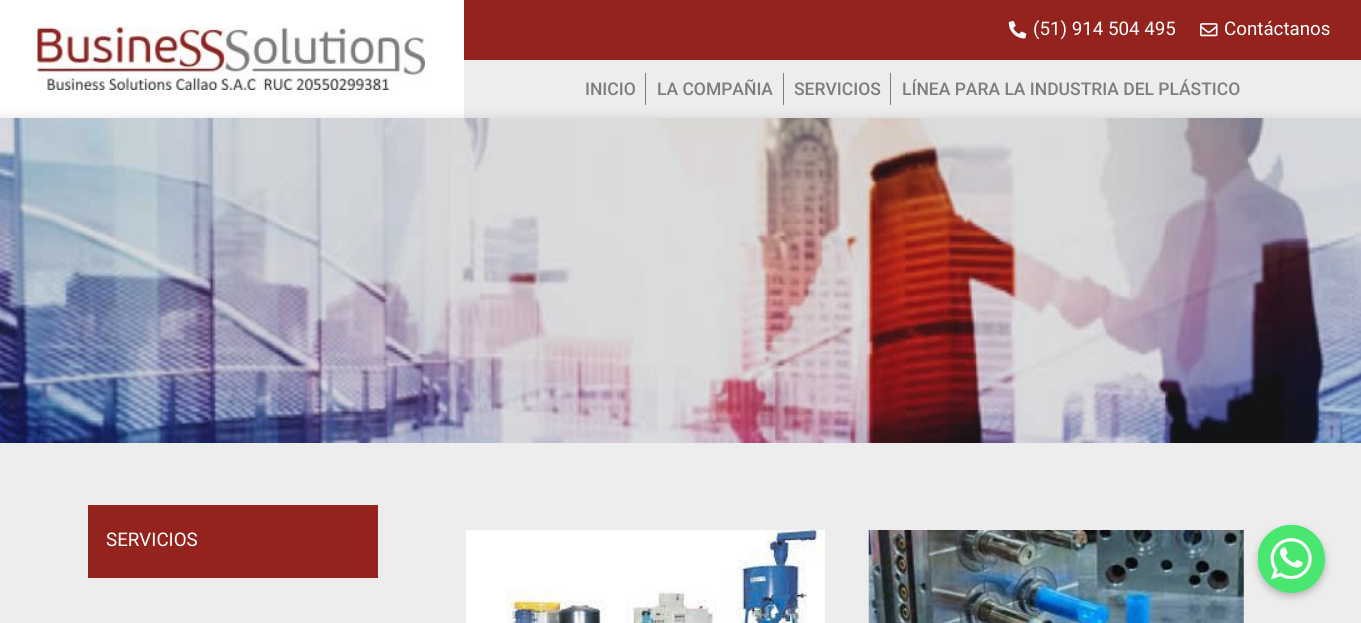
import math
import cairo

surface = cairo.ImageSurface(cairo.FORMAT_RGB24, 1361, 623)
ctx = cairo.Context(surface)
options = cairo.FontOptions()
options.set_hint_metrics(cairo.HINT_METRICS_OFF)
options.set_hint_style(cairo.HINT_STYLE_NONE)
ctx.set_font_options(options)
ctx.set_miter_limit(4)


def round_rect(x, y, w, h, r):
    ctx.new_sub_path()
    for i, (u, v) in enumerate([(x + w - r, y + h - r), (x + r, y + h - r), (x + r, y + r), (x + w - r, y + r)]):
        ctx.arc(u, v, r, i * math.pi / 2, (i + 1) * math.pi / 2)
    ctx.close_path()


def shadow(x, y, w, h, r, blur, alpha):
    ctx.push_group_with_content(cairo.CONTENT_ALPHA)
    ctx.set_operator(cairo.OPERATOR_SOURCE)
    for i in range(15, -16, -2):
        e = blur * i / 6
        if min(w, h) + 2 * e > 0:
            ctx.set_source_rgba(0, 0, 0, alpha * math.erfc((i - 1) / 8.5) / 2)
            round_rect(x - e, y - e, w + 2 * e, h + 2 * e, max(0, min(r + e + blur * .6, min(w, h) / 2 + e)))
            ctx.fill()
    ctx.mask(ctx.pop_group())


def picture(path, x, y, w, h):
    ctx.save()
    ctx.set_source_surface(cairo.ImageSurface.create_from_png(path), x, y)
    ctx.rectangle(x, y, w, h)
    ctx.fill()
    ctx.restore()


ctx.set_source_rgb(1, 1, 1)
ctx.paint()
ctx.save()
ctx.set_fill_rule(cairo.FILL_RULE_EVEN_ODD)
ctx.new_path()
ctx.move_to(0, 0)
ctx.line_to(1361, 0)
ctx.line_to(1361, 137)
ctx.line_to(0, 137)
ctx.close_path()
ctx.move_to(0, 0)
ctx.line_to(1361, 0)
ctx.line_to(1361, 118)
ctx.line_to(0, 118)
ctx.close_path()
ctx.clip()
ctx.set_source_rgb(0, 0, 0)
shadow(0, 0, 1361, 118, 0, 6, 0.12)
ctx.restore()
picture("img1.png", 37, 27, 388, 63)
ctx.set_source_rgb(0.58, 0.137, 0.114)
ctx.rectangle(464, 0, 897, 60)
ctx.fill()
picture("img2.png", 1008, 21, 19, 18)
ctx.select_font_face("Roboto")
ctx.set_font_size(18.75)
ctx.set_source_rgb(0.996, 0.996, 1)
ctx.move_to(1033, 35)
ctx.show_text("(51) 914 504 495")
picture("img3.png", 1200, 23, 18, 14)
ctx.move_to(1224, 35)
ctx.show_text("Contáctanos")
ctx.set_source_rgb(0.929, 0.929, 0.929)
ctx.rectangle(464, 60, 897, 58)
ctx.fill()
ctx.select_font_face("Roboto Medium")
ctx.set_font_size(17.5)
ctx.set_source_rgb(0.49, 0.49, 0.49)
ctx.move_to(585, 95)
ctx.show_text("INICIO")
ctx.rectangle(645, 73, 1, 32)
ctx.fill()
ctx.move_to(657, 95)
ctx.show_text("LA COMPAÑIA")
ctx.rectangle(783, 73, 1, 32)
ctx.fill()
ctx.move_to(794, 95)
ctx.show_text("SERVICIOS")
ctx.rectangle(890, 73, 1, 32)
ctx.fill()
ctx.move_to(902, 95)
ctx.show_text("LÍNEA PARA LA INDUSTRIA DEL PLÁSTICO")
ctx.set_source_rgb(0, 0, 0)
shadow(0, 118, 1361, 325, 0, 6, 0.12)
picture("img4.png", 0, 118, 1361, 325)
ctx.set_source_rgb(0.929, 0.929, 0.929)
ctx.rectangle(0, 443, 1361, 180)
ctx.fill()
ctx.set_source_rgb(0.58, 0.137, 0.114)
ctx.rectangle(88, 505, 290, 73)
ctx.fill()
ctx.select_font_face("Roboto")
ctx.set_font_size(18.75)
ctx.set_source_rgb(0.996, 0.996, 1)
ctx.move_to(106, 546)
ctx.show_text("SERVICIOS")
picture("img5.png", 466, 530, 359, 93)
picture("img6.png", 868, 530, 376, 93)
ctx.set_source_rgb(0, 0, 0)
shadow(1258, 529, 67, 67, 33.5, 4, 0.25)
ctx.set_source_rgb(0.286, 0.902, 0.439)
round_rect(1258, 525, 67, 68, 33.5)
ctx.fill()
picture("img7.png", 1258, 525, 67, 62)
surface.write_to_png("page.png")
